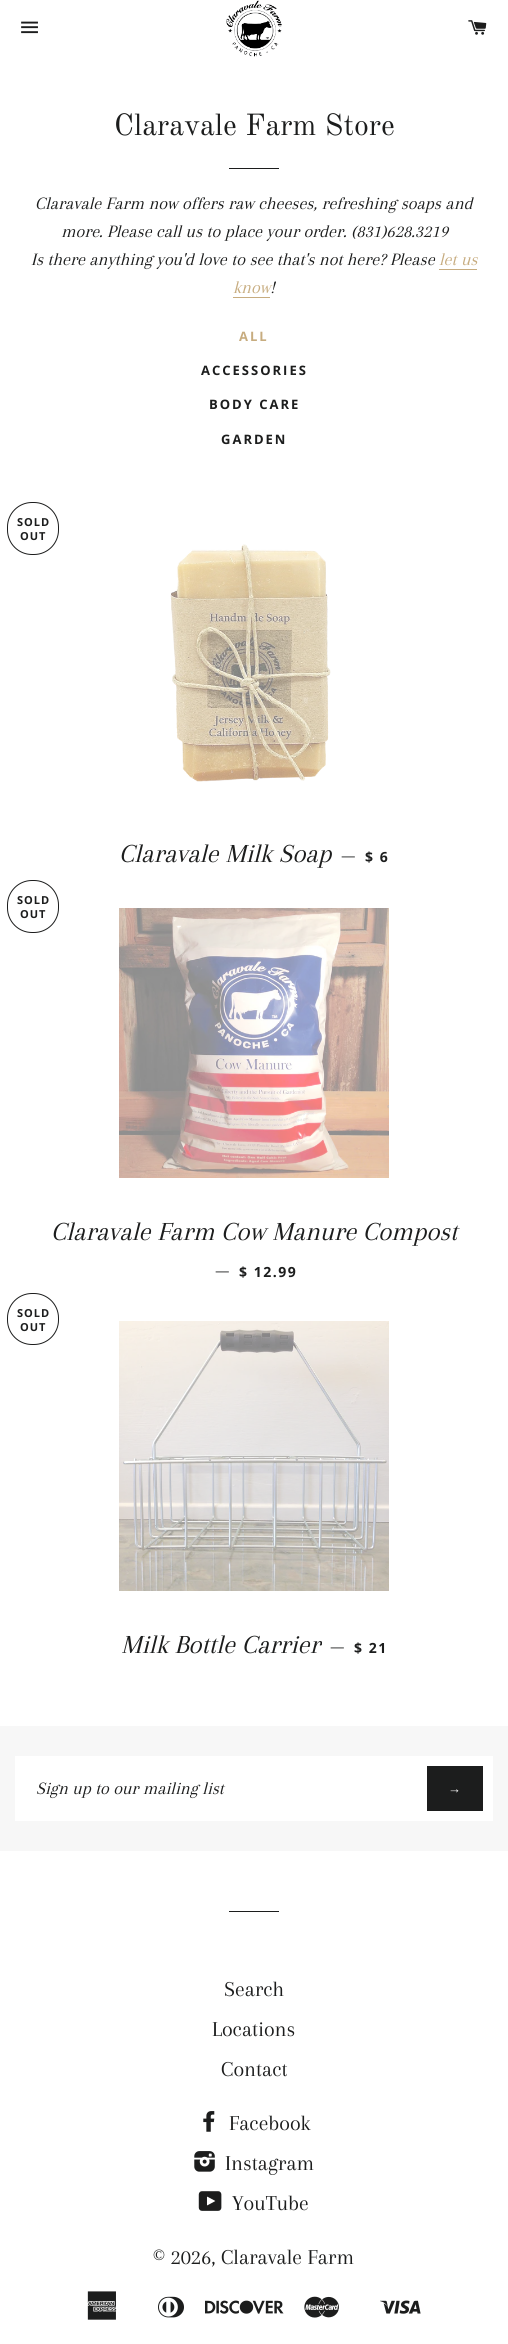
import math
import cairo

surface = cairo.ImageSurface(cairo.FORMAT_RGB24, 508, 2344)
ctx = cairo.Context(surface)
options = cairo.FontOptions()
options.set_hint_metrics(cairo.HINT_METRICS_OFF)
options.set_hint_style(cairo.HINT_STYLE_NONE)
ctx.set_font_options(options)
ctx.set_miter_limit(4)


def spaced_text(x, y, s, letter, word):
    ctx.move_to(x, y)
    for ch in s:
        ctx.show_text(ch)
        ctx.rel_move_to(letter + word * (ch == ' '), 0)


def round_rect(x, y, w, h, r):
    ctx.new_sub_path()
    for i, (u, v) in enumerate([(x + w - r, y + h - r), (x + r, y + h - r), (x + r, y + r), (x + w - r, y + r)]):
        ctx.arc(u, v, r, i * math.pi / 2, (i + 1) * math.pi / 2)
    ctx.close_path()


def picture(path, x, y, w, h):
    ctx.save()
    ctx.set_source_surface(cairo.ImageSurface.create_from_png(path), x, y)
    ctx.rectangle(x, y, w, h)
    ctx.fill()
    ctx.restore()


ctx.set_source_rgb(1, 1, 1)
ctx.paint()
picture("img1.png", 21, 21, 17, 13)
picture("img2.png", 226, 0, 56, 57)
picture("img3.png", 468, 20, 19, 15)
ctx.select_font_face("Old Standard TT")
ctx.set_font_size(30)
ctx.set_source_rgb(0.11, 0.114, 0.114)
ctx.move_to(114, 135)
ctx.show_text("Claravale Farm Store")
ctx.rectangle(229, 168, 50, 1)
ctx.fill()
ctx.select_font_face("Arapey", cairo.FONT_SLANT_ITALIC)
ctx.set_font_size(18)
ctx.move_to(35, 209)
ctx.show_text("Claravale Farm now offers raw cheeses, refreshing soaps and")
ctx.move_to(61, 237)
ctx.show_text("more. Please call us to place your order. (831)628.3219")
ctx.move_to(31, 265)
ctx.show_text("Is there anything you'd love to see that's not here? Please")
ctx.set_source_rgb(0.78, 0.675, 0.498)
ctx.move_to(439, 265)
ctx.show_text("let us")
ctx.rectangle(439, 269, 38, 1)
ctx.fill()
ctx.move_to(233, 293)
ctx.show_text("know")
ctx.rectangle(233, 297, 37, 1)
ctx.fill()
ctx.set_source_rgb(0.11, 0.114, 0.114)
ctx.move_to(270, 293)
ctx.show_text("!")
ctx.select_font_face("Open Sans", cairo.FONT_SLANT_NORMAL, cairo.FONT_WEIGHT_BOLD)
ctx.set_font_size(13)
ctx.set_source_rgb(0.78, 0.675, 0.498)
spaced_text(239, 341, "ALL", 2, 0)
ctx.set_source_rgb(0.11, 0.114, 0.114)
spaced_text(201, 375, "ACCESSORIES", 2, 0)
spaced_text(209, 409, "BODY CARE", 2, 0)
spaced_text(221, 444, "GARDEN", 2, 0)
round_rect(7.5, 502.5, 51, 52, 24.5)
ctx.set_line_width(1)
ctx.stroke()
ctx.set_font_size(11)
spaced_text(17, 526, "SOLD", 1, 0)
spaced_text(20, 540, "OUT", 1, 0)
picture("img4.png", 170, 544, 161, 238)
ctx.select_font_face("Arapey", cairo.FONT_SLANT_ITALIC)
ctx.set_font_size(27)
ctx.move_to(119, 862)
ctx.show_text("Claravale Milk Soap")
ctx.select_font_face("Arapey")
ctx.set_font_size(22)
ctx.move_to(341, 862)
ctx.show_text("—")
ctx.select_font_face("Open Sans", cairo.FONT_SLANT_NORMAL, cairo.FONT_WEIGHT_BOLD)
ctx.set_font_size(14)
spaced_text(365, 862, "$ 6", 1.5, 0)
round_rect(7.5, 880.5, 51, 52, 24.5)
ctx.stroke()
ctx.set_font_size(11)
spaced_text(17, 904, "SOLD", 1, 0)
spaced_text(20, 918, "OUT", 1, 0)
picture("img5.png", 119, 908, 270, 270)
ctx.select_font_face("Arapey", cairo.FONT_SLANT_ITALIC)
ctx.set_font_size(27)
ctx.move_to(51, 1240)
ctx.show_text("Claravale Farm Cow Manure Compost")
ctx.select_font_face("Arapey")
ctx.set_font_size(22)
ctx.move_to(215, 1277)
ctx.show_text("—")
ctx.select_font_face("Open Sans", cairo.FONT_SLANT_NORMAL, cairo.FONT_WEIGHT_BOLD)
ctx.set_font_size(14)
spaced_text(239, 1277, "$ 12.99", 1.5, 0)
round_rect(7.5, 1293.5, 51, 51, 24.5)
ctx.stroke()
ctx.set_font_size(11)
spaced_text(17, 1317, "SOLD", 1, 0)
spaced_text(20, 1331, "OUT", 1, 0)
picture("img6.png", 119, 1321, 270, 270)
ctx.select_font_face("Arapey", cairo.FONT_SLANT_ITALIC)
ctx.set_font_size(27)
ctx.move_to(121, 1653)
ctx.show_text("Milk Bottle Carrier")
ctx.select_font_face("Arapey")
ctx.set_font_size(22)
ctx.move_to(330, 1653)
ctx.show_text("—")
ctx.select_font_face("Open Sans", cairo.FONT_SLANT_NORMAL, cairo.FONT_WEIGHT_BOLD)
ctx.set_font_size(14)
spaced_text(354, 1653, "$ 21", 1.5, 0)
ctx.set_source_rgb(0.965, 0.965, 0.965)
ctx.rectangle(0, 1726, 508, 125)
ctx.fill()
ctx.set_source_rgb(1, 1, 1)
ctx.rectangle(15, 1756, 478, 65)
ctx.fill()
ctx.select_font_face("Arapey", cairo.FONT_SLANT_ITALIC)
ctx.set_font_size(18)
ctx.set_source_rgb(0.11, 0.114, 0.114)
ctx.move_to(36, 1794)
ctx.show_text("Sign up to our mailing list")
ctx.rectangle(427, 1766, 56, 45)
ctx.fill()
ctx.select_font_face("Liberation Sans", cairo.FONT_SLANT_NORMAL, cairo.FONT_WEIGHT_BOLD)
ctx.set_font_size(13)
ctx.set_source_rgb(1, 1, 1)
spaced_text(448, 1793, "→", 1, 0)
ctx.set_source_rgb(0.11, 0.114, 0.114)
ctx.rectangle(229, 1911, 50, 1)
ctx.fill()
ctx.select_font_face("Arapey")
ctx.set_font_size(22)
ctx.move_to(224, 1996)
ctx.show_text("Search")
ctx.move_to(212, 2036)
ctx.show_text("Locations")
ctx.move_to(221, 2076)
ctx.show_text("Contact")
picture("img7.png", 203, 2111, 12, 21)
ctx.move_to(229, 2130)
ctx.show_text("Facebook")
picture("img8.png", 194, 2151, 21, 21)
ctx.move_to(225, 2170)
ctx.show_text("Instagram")
picture("img9.png", 198, 2191, 24, 20)
ctx.move_to(232, 2210)
ctx.show_text("YouTube")
ctx.move_to(153, 2264)
ctx.show_text("© 2026, Claravale Farm")
picture("img10.png", 87, 2291, 30, 29)
picture("img11.png", 158, 2296, 26, 22)
picture("img12.png", 205, 2300, 79, 14)
picture("img13.png", 304, 2296, 35, 22)
picture("img14.png", 380, 2300, 41, 14)
surface.write_to_png("page.png")
